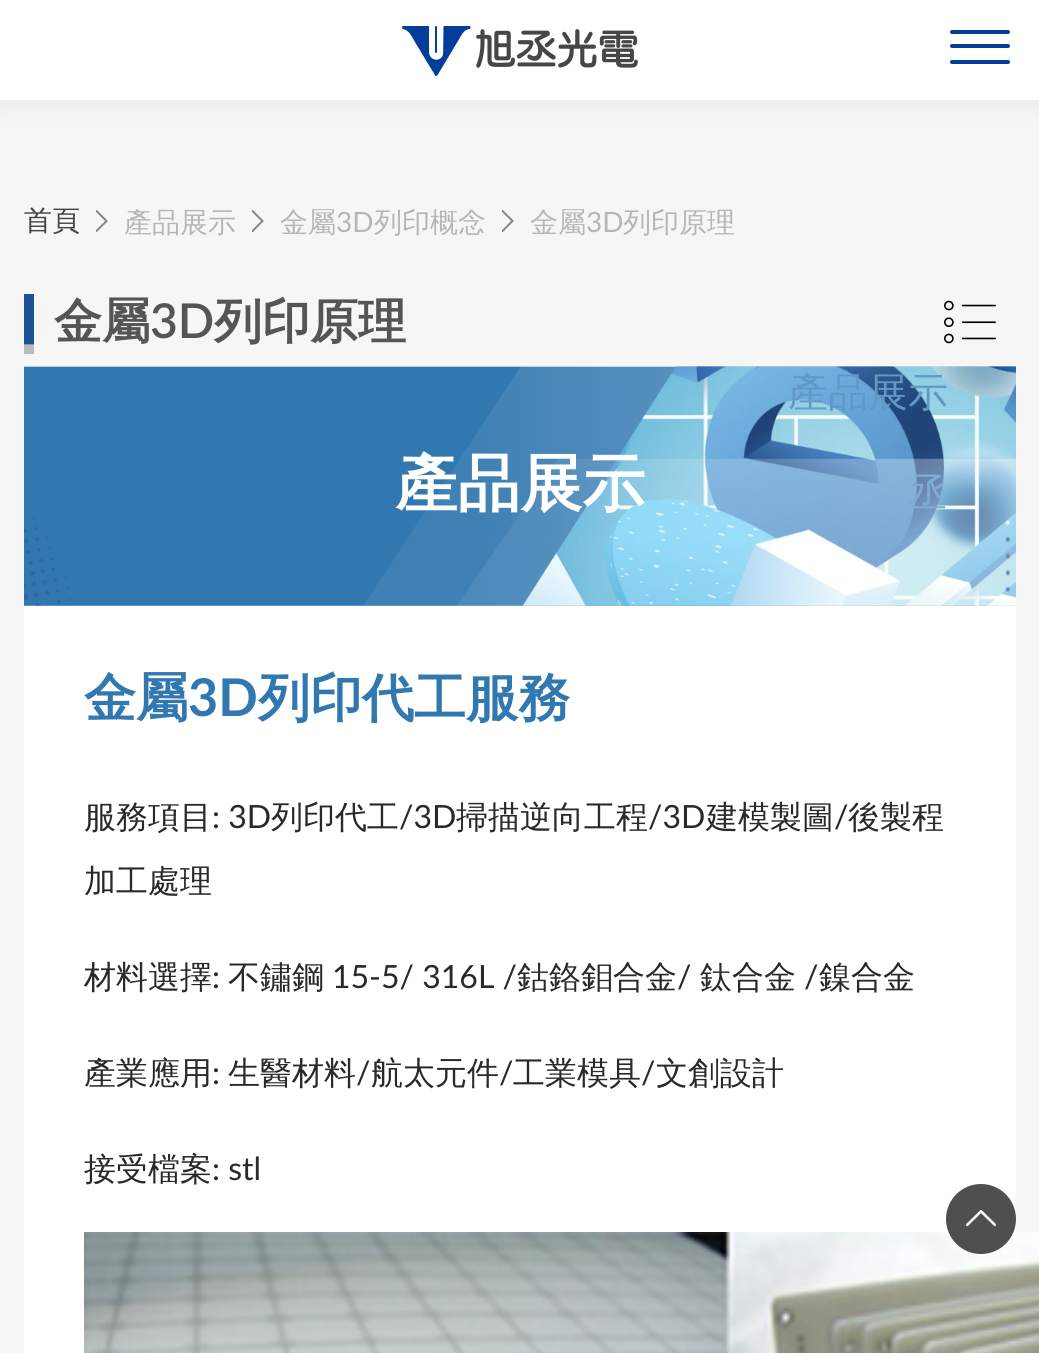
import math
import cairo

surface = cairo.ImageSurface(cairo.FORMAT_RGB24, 1039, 1353)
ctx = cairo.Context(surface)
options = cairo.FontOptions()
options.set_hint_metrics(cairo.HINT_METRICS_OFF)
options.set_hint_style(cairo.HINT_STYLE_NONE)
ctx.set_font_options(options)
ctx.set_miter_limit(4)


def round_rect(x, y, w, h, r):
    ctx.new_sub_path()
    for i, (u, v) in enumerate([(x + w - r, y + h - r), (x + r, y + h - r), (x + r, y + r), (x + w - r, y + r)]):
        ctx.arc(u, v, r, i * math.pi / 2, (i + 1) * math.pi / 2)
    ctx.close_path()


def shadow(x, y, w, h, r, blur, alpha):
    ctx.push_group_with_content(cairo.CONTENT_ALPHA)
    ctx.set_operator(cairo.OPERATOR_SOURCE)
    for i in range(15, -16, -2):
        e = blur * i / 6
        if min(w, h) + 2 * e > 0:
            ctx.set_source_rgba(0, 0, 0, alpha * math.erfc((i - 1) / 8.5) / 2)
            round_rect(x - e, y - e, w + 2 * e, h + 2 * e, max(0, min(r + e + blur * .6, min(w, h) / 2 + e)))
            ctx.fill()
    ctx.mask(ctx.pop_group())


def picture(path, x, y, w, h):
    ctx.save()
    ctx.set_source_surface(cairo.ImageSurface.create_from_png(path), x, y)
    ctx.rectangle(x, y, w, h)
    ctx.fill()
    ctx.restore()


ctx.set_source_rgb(0.961, 0.961, 0.961)
ctx.paint()
ctx.select_font_face("WenQuanYi Zen Hei Medium")
ctx.set_font_size(28)
ctx.set_source_rgb(0.263, 0.263, 0.263)
ctx.move_to(24, 230)
ctx.show_text("首頁")
ctx.save()
ctx.rectangle(96, 200, 12, 42)
ctx.clip()
ctx.new_path()
ctx.move_to(96.5, 211)
ctx.line_to(106.5, 221)
ctx.line_to(96.5, 231)
ctx.set_source_rgb(0.525, 0.525, 0.525)
ctx.set_line_cap(cairo.LINE_CAP_ROUND)
ctx.stroke()
ctx.restore()
ctx.set_source_rgb(0.714, 0.714, 0.714)
ctx.move_to(124, 232)
ctx.show_text("產品展示")
ctx.save()
ctx.rectangle(252, 200, 12, 42)
ctx.clip()
ctx.new_path()
ctx.move_to(252.5, 211)
ctx.line_to(262.5, 221)
ctx.line_to(252.5, 231)
ctx.set_source_rgb(0.525, 0.525, 0.525)
ctx.set_line_cap(cairo.LINE_CAP_ROUND)
ctx.stroke()
ctx.restore()
ctx.move_to(280, 232)
ctx.show_text("金屬")
ctx.select_font_face("Lato")
ctx.move_to(336, 232)
ctx.show_text("3D")
ctx.select_font_face("WenQuanYi Zen Hei Medium")
ctx.move_to(374, 232)
ctx.show_text("列印概念")
ctx.save()
ctx.rectangle(502, 200, 12, 42)
ctx.clip()
ctx.new_path()
ctx.move_to(502.5, 211)
ctx.line_to(512.5, 221)
ctx.line_to(502.5, 231)
ctx.set_source_rgb(0.525, 0.525, 0.525)
ctx.set_line_cap(cairo.LINE_CAP_ROUND)
ctx.stroke()
ctx.restore()
ctx.move_to(530, 232)
ctx.show_text("金屬")
ctx.select_font_face("Lato")
ctx.move_to(586, 232)
ctx.show_text("3D")
ctx.select_font_face("WenQuanYi Zen Hei Medium")
ctx.move_to(623, 232)
ctx.show_text("列印原理")
picture("img1.png", 24, 294, 10, 60)
ctx.select_font_face("WenQuanYi Zen Hei", cairo.FONT_SLANT_NORMAL, cairo.FONT_WEIGHT_BOLD)
ctx.set_font_size(48)
ctx.set_source_rgb(0.333, 0.333, 0.333)
ctx.move_to(54, 338)
ctx.show_text("金屬")
ctx.select_font_face("Lato SemiBold")
ctx.move_to(150, 338)
ctx.show_text("3D")
ctx.select_font_face("WenQuanYi Zen Hei", cairo.FONT_SLANT_NORMAL, cairo.FONT_WEIGHT_BOLD)
ctx.move_to(214, 338)
ctx.show_text("列印原理")
picture("img2.png", 944, 300, 52, 44)
ctx.set_source_rgb(1, 1, 1)
ctx.rectangle(24, 366, 992, 987)
ctx.fill()
picture("img3.png", 24, 366, 992, 240)
ctx.set_font_size(62.5)
ctx.move_to(395, 505)
ctx.show_text("產品展示")
ctx.set_font_size(52)
ctx.set_source_rgb(0.196, 0.471, 0.69)
ctx.move_to(84, 716)
ctx.show_text("金屬")
ctx.select_font_face("Lato", cairo.FONT_SLANT_NORMAL, cairo.FONT_WEIGHT_BOLD)
ctx.move_to(188, 716)
ctx.show_text("3D")
ctx.select_font_face("WenQuanYi Zen Hei", cairo.FONT_SLANT_NORMAL, cairo.FONT_WEIGHT_BOLD)
ctx.move_to(258, 716)
ctx.show_text("列印代工服務")
ctx.select_font_face("WenQuanYi Zen Hei Medium")
ctx.set_font_size(32)
ctx.set_source_rgb(0.161, 0.161, 0.161)
ctx.move_to(84, 828)
ctx.show_text("服務項目")
ctx.select_font_face("Lato")
ctx.move_to(212, 828)
ctx.show_text(": 3D")
ctx.select_font_face("WenQuanYi Zen Hei Medium")
ctx.move_to(271, 828)
ctx.show_text("列印代工")
ctx.select_font_face("Lato")
ctx.move_to(399, 828)
ctx.show_text("/3D")
ctx.select_font_face("WenQuanYi Zen Hei Medium")
ctx.move_to(456, 828)
ctx.show_text("掃描逆向工程")
ctx.select_font_face("Lato")
ctx.move_to(648, 828)
ctx.show_text("/3D")
ctx.select_font_face("WenQuanYi Zen Hei Medium")
ctx.move_to(706, 828)
ctx.show_text("建模製圖")
ctx.select_font_face("Lato")
ctx.move_to(834, 828)
ctx.show_text("/")
ctx.select_font_face("WenQuanYi Zen Hei Medium")
ctx.move_to(848, 828)
ctx.show_text("後製程")
ctx.move_to(84, 892)
ctx.show_text("加工處理")
ctx.move_to(84, 988)
ctx.show_text("材料選擇")
ctx.select_font_face("Lato")
ctx.move_to(212, 988)
ctx.show_text(":")
ctx.select_font_face("WenQuanYi Zen Hei Medium")
ctx.move_to(228, 988)
ctx.show_text("不鏽鋼")
ctx.select_font_face("Lato")
ctx.move_to(332, 988)
ctx.show_text("15-5/ 316L /")
ctx.select_font_face("WenQuanYi Zen Hei Medium")
ctx.move_to(517, 988)
ctx.show_text("鈷鉻鉬合金")
ctx.select_font_face("Lato")
ctx.move_to(677, 988)
ctx.show_text("/")
ctx.select_font_face("WenQuanYi Zen Hei Medium")
ctx.move_to(700, 988)
ctx.show_text("鈦合金")
ctx.select_font_face("Lato")
ctx.move_to(804, 988)
ctx.show_text("/")
ctx.select_font_face("WenQuanYi Zen Hei Medium")
ctx.move_to(819, 988)
ctx.show_text("鎳合金")
ctx.move_to(84, 1084)
ctx.show_text("產業應用")
ctx.select_font_face("Lato")
ctx.move_to(212, 1084)
ctx.show_text(":")
ctx.select_font_face("WenQuanYi Zen Hei Medium")
ctx.move_to(228, 1084)
ctx.show_text("生醫材料")
ctx.select_font_face("Lato")
ctx.move_to(356, 1084)
ctx.show_text("/")
ctx.select_font_face("WenQuanYi Zen Hei Medium")
ctx.move_to(371, 1084)
ctx.show_text("航太元件")
ctx.select_font_face("Lato")
ctx.move_to(499, 1084)
ctx.show_text("/")
ctx.select_font_face("WenQuanYi Zen Hei Medium")
ctx.move_to(513, 1084)
ctx.show_text("工業模具")
ctx.select_font_face("Lato")
ctx.move_to(641, 1084)
ctx.show_text("/")
ctx.select_font_face("WenQuanYi Zen Hei Medium")
ctx.move_to(656, 1084)
ctx.show_text("文創設計")
ctx.move_to(84, 1180)
ctx.show_text("接受檔案")
ctx.select_font_face("Lato")
ctx.move_to(212, 1180)
ctx.show_text(": stl")
picture("img4.png", 84, 1232, 955, 121)
ctx.set_source_rgb(0, 0, 0)
shadow(0, 6, 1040, 100, 0, 12, 0.05)
ctx.set_source_rgb(1, 1, 1)
ctx.rectangle(0, 0, 1039, 100)
ctx.fill()
picture("img5.png", 402, 26, 236, 50)
ctx.set_source_rgb(0.016, 0.243, 0.604)
round_rect(950, 30, 60, 4, 2)
ctx.fill()
round_rect(950, 44, 60, 4, 2)
ctx.fill()
round_rect(950, 60, 60, 4, 2)
ctx.fill()
ctx.select_font_face("WenQuanYi Zen Hei Medium")
ctx.set_font_size(40)
ctx.set_source_rgb(0.384, 0.6, 0.769)
ctx.move_to(788, 406)
ctx.show_text("產品展示")
ctx.set_source_rgb(0.502, 0.671, 0.827)
ctx.move_to(908, 506)
ctx.show_text("丞")
ctx.set_source_rgba(0, 0, 0, 0.69)
ctx.new_path()
ctx.arc(981, 1219, 35, 0, 2 * math.pi)
ctx.fill()
picture("img6.png", 966, 1210, 30, 17)
surface.write_to_png("page.png")
